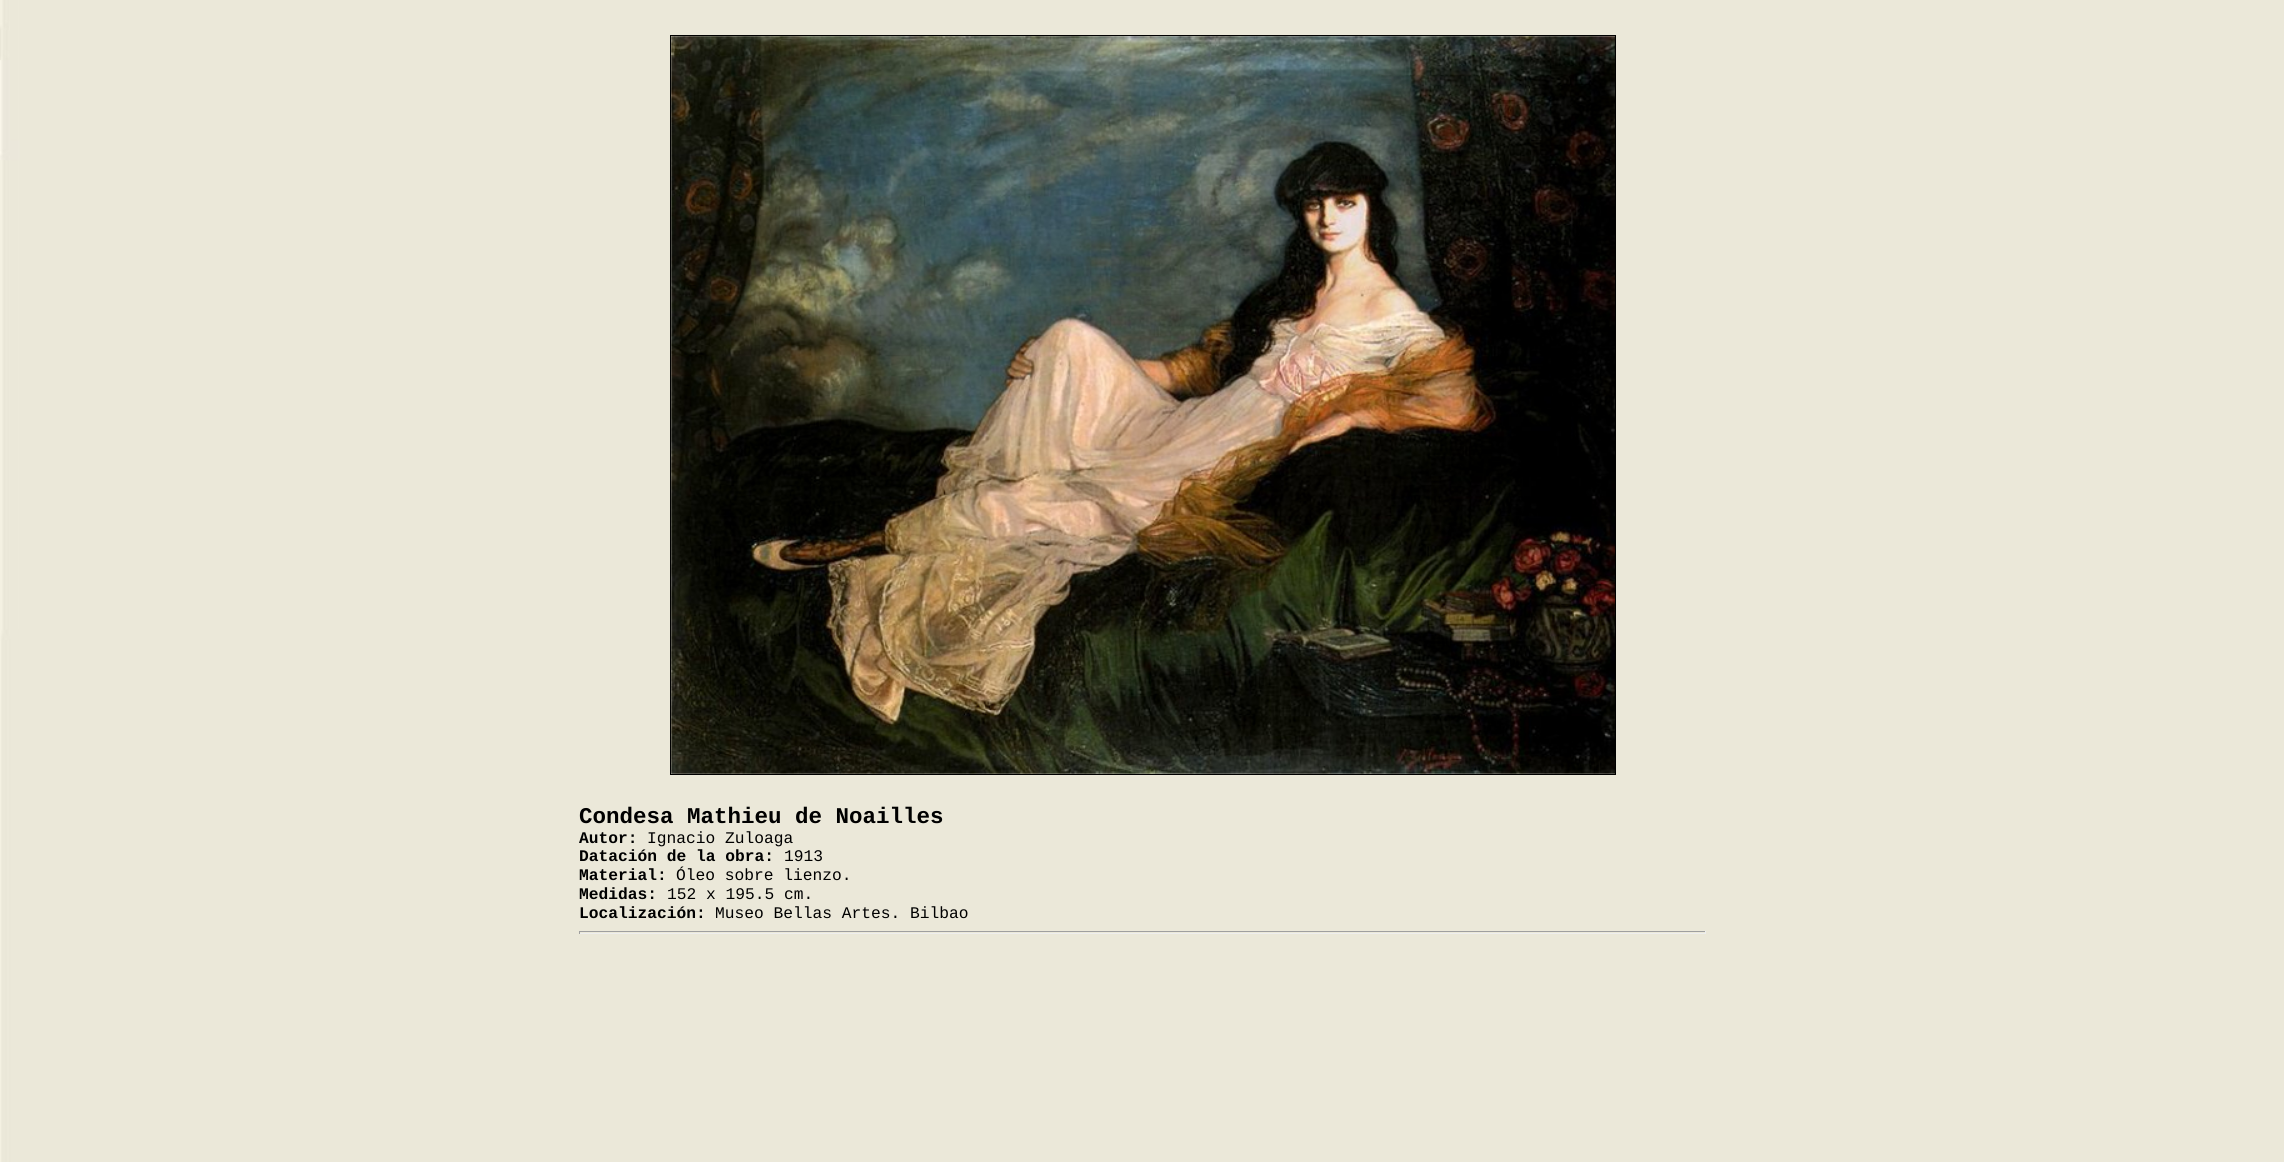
import math
import cairo

surface = cairo.ImageSurface(cairo.FORMAT_RGB24, 2284, 1162)
ctx = cairo.Context(surface)
options = cairo.FontOptions()
options.set_hint_metrics(cairo.HINT_METRICS_OFF)
options.set_hint_style(cairo.HINT_STYLE_NONE)
ctx.set_font_options(options)
ctx.set_miter_limit(4)


def picture(path, x, y, w, h):
    ctx.save()
    ctx.set_source_surface(cairo.ImageSurface.create_from_png(path), x, y)
    ctx.rectangle(x, y, w, h)
    ctx.fill()
    ctx.restore()


ctx.set_source_rgb(1, 1, 1)
ctx.paint()
picture("img1.png", 0, 0, 2284, 1162)
ctx.rectangle(670.5, 35.5, 945, 739)
ctx.set_source_rgb(0, 0, 0)
ctx.set_line_width(1)
ctx.stroke()
picture("img2.png", 671, 36, 944, 738)
ctx.select_font_face("Liberation Mono", cairo.FONT_SLANT_NORMAL, cairo.FONT_WEIGHT_BOLD)
ctx.set_font_size(22.5)
ctx.move_to(579, 823)
ctx.show_text("Condesa Mathieu de Noailles")
ctx.set_font_size(16.25)
ctx.move_to(579, 843)
ctx.show_text("Autor:")
ctx.select_font_face("Liberation Mono")
ctx.move_to(647, 843)
ctx.show_text("Ignacio Zuloaga")
ctx.select_font_face("Liberation Mono", cairo.FONT_SLANT_NORMAL, cairo.FONT_WEIGHT_BOLD)
ctx.move_to(579, 861)
ctx.show_text("Datación de la obra:")
ctx.select_font_face("Liberation Mono")
ctx.move_to(784, 861)
ctx.show_text("1913")
ctx.select_font_face("Liberation Mono", cairo.FONT_SLANT_NORMAL, cairo.FONT_WEIGHT_BOLD)
ctx.move_to(579, 880)
ctx.show_text("Material:")
ctx.select_font_face("Liberation Mono")
ctx.move_to(676, 880)
ctx.show_text("Óleo sobre lienzo.")
ctx.select_font_face("Liberation Mono", cairo.FONT_SLANT_NORMAL, cairo.FONT_WEIGHT_BOLD)
ctx.move_to(579, 899)
ctx.show_text("Medidas:")
ctx.select_font_face("Liberation Mono")
ctx.move_to(667, 899)
ctx.show_text("152 x 195.5 cm.")
ctx.select_font_face("Liberation Mono", cairo.FONT_SLANT_NORMAL, cairo.FONT_WEIGHT_BOLD)
ctx.move_to(579, 918)
ctx.show_text("Localización:")
ctx.select_font_face("Liberation Mono")
ctx.move_to(715, 918)
ctx.show_text("Museo Bellas Artes. Bilbao")
ctx.set_source_rgb(0.624, 0.624, 0.624)
ctx.rectangle(579, 931, 1127, 1)
ctx.fill()
ctx.set_source_rgb(0.933, 0.933, 0.933)
ctx.rectangle(1705, 931, 1, 3)
ctx.fill()
ctx.rectangle(579, 933, 1127, 1)
ctx.fill()
ctx.set_source_rgb(0.624, 0.624, 0.624)
ctx.rectangle(579, 931, 1, 3)
ctx.fill()
surface.write_to_png("page.png")
